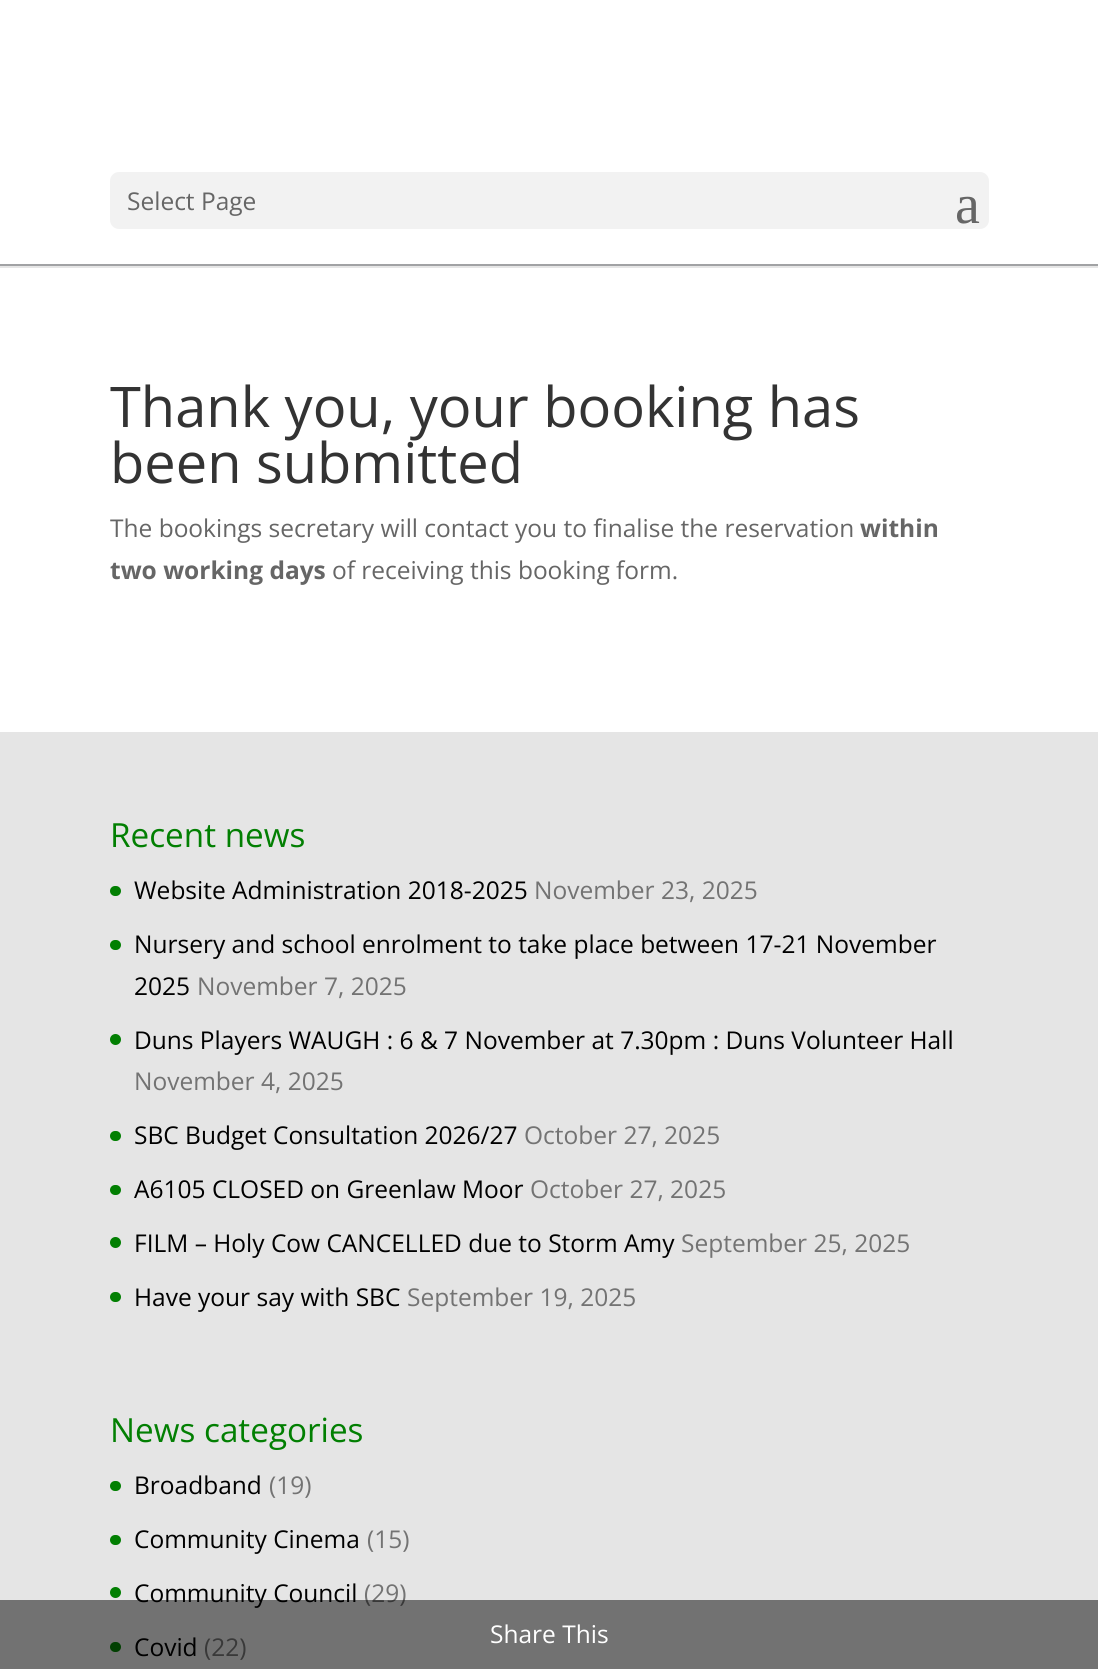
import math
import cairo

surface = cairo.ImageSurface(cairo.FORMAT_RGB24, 1098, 1669)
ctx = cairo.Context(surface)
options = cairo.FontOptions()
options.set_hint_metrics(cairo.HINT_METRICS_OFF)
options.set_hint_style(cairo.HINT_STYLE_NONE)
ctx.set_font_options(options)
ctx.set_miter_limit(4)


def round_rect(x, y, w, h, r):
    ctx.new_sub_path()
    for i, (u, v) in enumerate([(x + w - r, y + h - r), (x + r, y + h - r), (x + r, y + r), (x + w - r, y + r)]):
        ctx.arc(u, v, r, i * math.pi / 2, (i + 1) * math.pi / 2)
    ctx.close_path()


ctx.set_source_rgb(1, 1, 1)
ctx.paint()
ctx.set_source_rgb(0.902, 0.902, 0.902)
ctx.rectangle(0, 266, 1098, 2)
ctx.fill()
ctx.set_source_rgb(0.631, 0.635, 0.643)
ctx.rectangle(0, 264, 1098, 2)
ctx.fill()
ctx.set_source_rgb(0.949, 0.949, 0.949)
round_rect(110, 172, 879, 57, 9)
ctx.fill()
ctx.select_font_face("Open Sans")
ctx.set_font_size(24.5)
ctx.set_source_rgb(0.4, 0.4, 0.4)
ctx.move_to(127, 210)
ctx.show_text("Select Page")
ctx.select_font_face("Liberation Serif")
ctx.set_font_size(56)
ctx.move_to(955, 223)
ctx.show_text("a")
ctx.select_font_face("Open Sans")
ctx.set_source_rgb(0.2, 0.2, 0.2)
ctx.move_to(110, 427)
ctx.show_text("Thank you, your booking has")
ctx.move_to(110, 483)
ctx.show_text("been submitted")
ctx.set_font_size(24.5)
ctx.set_source_rgb(0.4, 0.4, 0.4)
ctx.move_to(110, 537)
ctx.show_text("The bookings secretary will contact you to finalise the reservation")
ctx.select_font_face("Open Sans", cairo.FONT_SLANT_NORMAL, cairo.FONT_WEIGHT_BOLD)
ctx.move_to(860, 537)
ctx.show_text("within")
ctx.move_to(110, 579)
ctx.show_text("two working days")
ctx.select_font_face("Open Sans")
ctx.move_to(332, 579)
ctx.show_text("of receiving this booking form.")
ctx.set_source_rgb(0.898, 0.898, 0.898)
ctx.rectangle(0, 732, 1098, 937)
ctx.fill()
ctx.set_font_size(33.25)
ctx.set_source_rgb(0.008, 0.498, 0.008)
ctx.move_to(110, 847)
ctx.show_text("Recent news")
round_rect(110, 886, 11, 10, 5)
ctx.fill()
ctx.set_font_size(24.5)
ctx.set_source_rgb(0, 0, 0)
ctx.move_to(134, 899)
ctx.show_text("Website Administration 2018-2025")
ctx.set_source_rgb(0.451, 0.451, 0.451)
ctx.move_to(534, 899)
ctx.show_text("November 23, 2025")
ctx.set_source_rgb(0.008, 0.498, 0.008)
round_rect(110, 940, 11, 10, 5)
ctx.fill()
ctx.set_source_rgb(0, 0, 0)
ctx.move_to(134, 953)
ctx.show_text("Nursery and school enrolment to take place between 17-21 November")
ctx.move_to(134, 995)
ctx.show_text("2025")
ctx.set_source_rgb(0.451, 0.451, 0.451)
ctx.move_to(197, 995)
ctx.show_text("November 7, 2025")
ctx.set_source_rgb(0.008, 0.498, 0.008)
ctx.new_path()
ctx.arc(115.5, 1039.5, 5.5, 0, 2 * math.pi)
ctx.fill()
ctx.set_source_rgb(0, 0, 0)
ctx.move_to(134, 1049)
ctx.show_text("Duns Players WAUGH : 6 & 7 November at 7.30pm : Duns Volunteer Hall")
ctx.set_source_rgb(0.451, 0.451, 0.451)
ctx.move_to(134, 1090)
ctx.show_text("November 4, 2025")
ctx.set_source_rgb(0.008, 0.498, 0.008)
round_rect(110, 1131, 11, 10, 5)
ctx.fill()
ctx.set_source_rgb(0, 0, 0)
ctx.move_to(134, 1144)
ctx.show_text("SBC Budget Consultation 2026/27")
ctx.set_source_rgb(0.451, 0.451, 0.451)
ctx.move_to(524, 1144)
ctx.show_text("October 27, 2025")
ctx.set_source_rgb(0.008, 0.498, 0.008)
round_rect(110, 1185, 11, 10, 5)
ctx.fill()
ctx.set_source_rgb(0, 0, 0)
ctx.move_to(134, 1198)
ctx.show_text("A6105 CLOSED on Greenlaw Moor")
ctx.set_source_rgb(0.451, 0.451, 0.451)
ctx.move_to(530, 1198)
ctx.show_text("October 27, 2025")
ctx.set_source_rgb(0.008, 0.498, 0.008)
ctx.new_path()
ctx.arc(115.5, 1242.5, 5.5, 0, 2 * math.pi)
ctx.fill()
ctx.set_source_rgb(0, 0, 0)
ctx.move_to(134, 1252)
ctx.show_text("FILM – Holy Cow CANCELLED due to Storm Amy")
ctx.set_source_rgb(0.451, 0.451, 0.451)
ctx.move_to(681, 1252)
ctx.show_text("September 25, 2025")
ctx.set_source_rgb(0.008, 0.498, 0.008)
round_rect(110, 1292, 11, 10, 5)
ctx.fill()
ctx.set_source_rgb(0, 0, 0)
ctx.move_to(134, 1306)
ctx.show_text("Have your say with SBC")
ctx.set_source_rgb(0.451, 0.451, 0.451)
ctx.move_to(407, 1306)
ctx.show_text("September 19, 2025")
ctx.set_font_size(33.25)
ctx.set_source_rgb(0.008, 0.498, 0.008)
ctx.move_to(110, 1442)
ctx.show_text("News categories")
round_rect(110, 1481, 11, 10, 5)
ctx.fill()
ctx.set_font_size(24.5)
ctx.set_source_rgb(0, 0, 0)
ctx.move_to(134, 1494)
ctx.show_text("Broadband")
ctx.set_source_rgb(0.451, 0.451, 0.451)
ctx.move_to(269, 1494)
ctx.show_text("(19)")
ctx.set_source_rgb(0.008, 0.498, 0.008)
round_rect(110, 1535, 11, 10, 5)
ctx.fill()
ctx.set_source_rgb(0, 0, 0)
ctx.move_to(134, 1548)
ctx.show_text("Community Cinema")
ctx.set_source_rgb(0.451, 0.451, 0.451)
ctx.move_to(367, 1548)
ctx.show_text("(15)")
ctx.set_source_rgb(0.008, 0.498, 0.008)
ctx.new_path()
ctx.arc(115.5, 1592.5, 5.5, 0, 2 * math.pi)
ctx.fill()
ctx.set_source_rgb(0, 0, 0)
ctx.move_to(134, 1602)
ctx.show_text("Community Council")
ctx.set_source_rgb(0.451, 0.451, 0.451)
ctx.move_to(364, 1602)
ctx.show_text("(29)")
ctx.set_source_rgb(0.008, 0.498, 0.008)
round_rect(110, 1642, 11, 10, 5)
ctx.fill()
ctx.set_source_rgb(0, 0, 0)
ctx.move_to(134, 1656)
ctx.show_text("Covid")
ctx.set_source_rgb(0.451, 0.451, 0.451)
ctx.move_to(204, 1656)
ctx.show_text("(22)")
ctx.set_source_rgba(0, 0, 0, 0.5)
ctx.rectangle(0, 1600, 1098, 69)
ctx.fill()
ctx.set_source_rgb(1, 1, 1)
ctx.move_to(490, 1643)
ctx.show_text("Share This")
surface.write_to_png("page.png")
